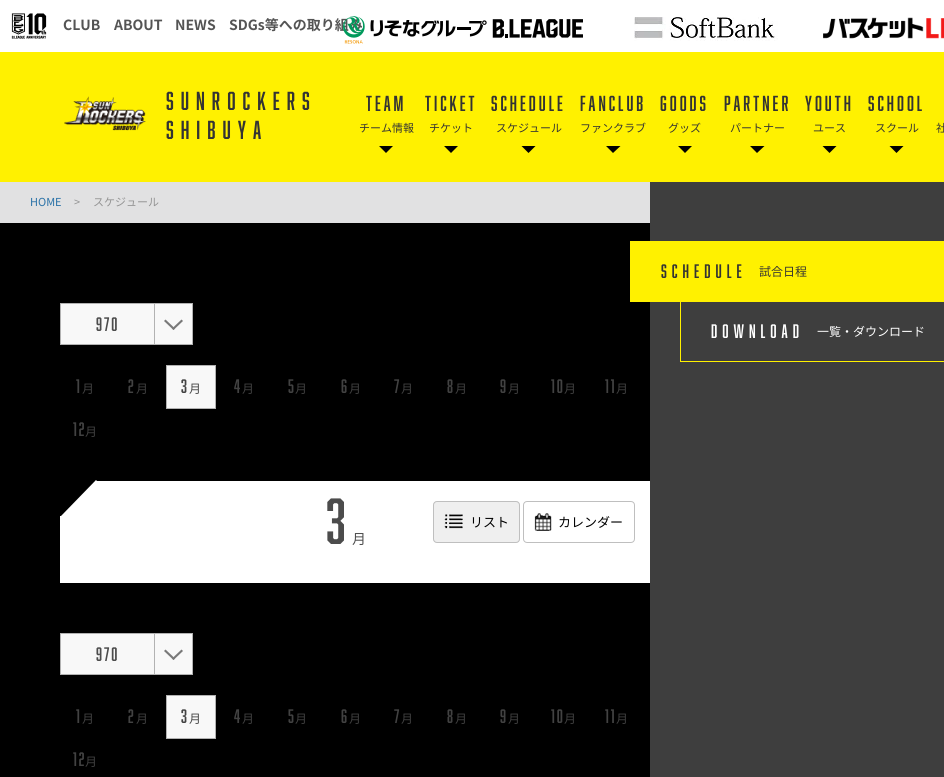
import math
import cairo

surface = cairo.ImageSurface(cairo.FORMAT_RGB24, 944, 777)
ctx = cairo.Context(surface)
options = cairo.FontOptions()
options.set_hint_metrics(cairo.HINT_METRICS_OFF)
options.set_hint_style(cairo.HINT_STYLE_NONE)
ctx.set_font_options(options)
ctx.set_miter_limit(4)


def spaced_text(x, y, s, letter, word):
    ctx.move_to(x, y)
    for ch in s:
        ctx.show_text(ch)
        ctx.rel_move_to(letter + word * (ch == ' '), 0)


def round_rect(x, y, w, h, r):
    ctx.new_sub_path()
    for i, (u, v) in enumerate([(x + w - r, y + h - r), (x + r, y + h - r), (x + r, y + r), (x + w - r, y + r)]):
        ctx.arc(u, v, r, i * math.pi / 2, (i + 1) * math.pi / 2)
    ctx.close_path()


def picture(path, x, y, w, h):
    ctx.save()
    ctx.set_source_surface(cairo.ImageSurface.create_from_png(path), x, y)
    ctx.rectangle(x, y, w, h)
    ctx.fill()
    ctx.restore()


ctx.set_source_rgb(1, 1, 1)
ctx.paint()
picture("img1.png", 11, 13, 36, 26)
ctx.select_font_face("Noto Sans CJK JP", cairo.FONT_SLANT_NORMAL, cairo.FONT_WEIGHT_BOLD)
ctx.set_font_size(14)
ctx.set_source_rgb(0.329, 0.329, 0.329)
ctx.move_to(63, 30)
ctx.show_text("CLUB")
ctx.move_to(114, 30)
ctx.show_text("ABOUT")
ctx.move_to(175, 30)
ctx.show_text("NEWS")
ctx.move_to(229, 30)
ctx.show_text("SDGs等への取り組み")
picture("img2.png", 343, 16, 240, 28)
picture("img3.png", 634, 17, 144, 24)
picture("img4.png", 823, 17, 121, 22)
ctx.set_source_rgb(1, 0.945, 0)
ctx.rectangle(0, 52, 944, 130)
ctx.fill()
picture("img5.png", 64, 96, 82, 35)
ctx.select_font_face("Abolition")
ctx.set_font_size(24)
ctx.set_source_rgb(0.2, 0.2, 0.2)
spaced_text(166, 110, "SUNROCKERS", 7, 0)
spaced_text(166, 139, "SHIBUYA", 7, 0)
ctx.set_font_size(20)
spaced_text(366, 111, "TEAM", 3, 0)
ctx.select_font_face("Noto Sans CJK JP")
ctx.set_font_size(11)
ctx.move_to(359, 132)
ctx.show_text("チーム情報")
ctx.set_source_rgb(0, 0, 0)
ctx.new_path()
ctx.move_to(386, 139)
ctx.line_to(393, 146)
ctx.line_to(386, 153)
ctx.line_to(379, 146)
ctx.close_path()
ctx.fill()
ctx.set_source_rgb(1, 0.945, 0)
ctx.rectangle(379, 139, 14, 7)
ctx.fill()
ctx.select_font_face("Abolition")
ctx.set_font_size(20)
ctx.set_source_rgb(0.2, 0.2, 0.2)
spaced_text(425, 111, "TICKET", 3, 0)
ctx.select_font_face("Noto Sans CJK JP")
ctx.set_font_size(11)
ctx.move_to(429, 132)
ctx.show_text("チケット")
ctx.set_source_rgb(0, 0, 0)
ctx.new_path()
ctx.move_to(451, 139)
ctx.line_to(458, 146)
ctx.line_to(451, 153)
ctx.line_to(444, 146)
ctx.close_path()
ctx.fill()
ctx.set_source_rgb(1, 0.945, 0)
ctx.rectangle(444, 139, 14, 7)
ctx.fill()
ctx.select_font_face("Abolition")
ctx.set_font_size(20)
ctx.set_source_rgb(0.2, 0.2, 0.2)
spaced_text(491, 111, "SCHEDULE", 3, 0)
ctx.select_font_face("Noto Sans CJK JP")
ctx.set_font_size(11)
ctx.move_to(496, 132)
ctx.show_text("スケジュール")
ctx.set_source_rgb(0, 0, 0)
ctx.new_path()
ctx.move_to(528.5, 139)
ctx.line_to(535.5, 146)
ctx.line_to(528.5, 153)
ctx.line_to(521.5, 146)
ctx.close_path()
ctx.fill()
ctx.set_source_rgb(1, 0.945, 0)
ctx.rectangle(521, 139, 15, 7)
ctx.fill()
ctx.select_font_face("Abolition")
ctx.set_font_size(20)
ctx.set_source_rgb(0.2, 0.2, 0.2)
spaced_text(580, 111, "FANCLUB", 3, 0)
ctx.select_font_face("Noto Sans CJK JP")
ctx.set_font_size(11)
ctx.move_to(580, 132)
ctx.show_text("ファンクラブ")
ctx.set_source_rgb(0, 0, 0)
ctx.new_path()
ctx.move_to(613, 139)
ctx.line_to(620.5, 146)
ctx.line_to(613, 153)
ctx.line_to(606, 146)
ctx.close_path()
ctx.fill()
ctx.set_source_rgb(1, 0.945, 0)
ctx.rectangle(606, 139, 15, 7)
ctx.fill()
ctx.select_font_face("Abolition")
ctx.set_font_size(20)
ctx.set_source_rgb(0.2, 0.2, 0.2)
spaced_text(660, 111, "GOODS", 3, 0)
ctx.select_font_face("Noto Sans CJK JP")
ctx.set_font_size(11)
ctx.move_to(668, 132)
ctx.show_text("グッズ")
ctx.set_source_rgb(0, 0, 0)
ctx.new_path()
ctx.move_to(685, 139)
ctx.line_to(692, 146)
ctx.line_to(685, 153)
ctx.line_to(678, 146)
ctx.close_path()
ctx.fill()
ctx.set_source_rgb(1, 0.945, 0)
ctx.rectangle(678, 139, 14, 7)
ctx.fill()
ctx.select_font_face("Abolition")
ctx.set_font_size(20)
ctx.set_source_rgb(0.2, 0.2, 0.2)
spaced_text(724, 111, "PARTNER", 3, 0)
ctx.select_font_face("Noto Sans CJK JP")
ctx.set_font_size(11)
ctx.move_to(730, 132)
ctx.show_text("パートナー")
ctx.set_source_rgb(0, 0, 0)
ctx.new_path()
ctx.move_to(757, 139)
ctx.line_to(764.5, 146)
ctx.line_to(757, 153)
ctx.line_to(750, 146)
ctx.close_path()
ctx.fill()
ctx.set_source_rgb(1, 0.945, 0)
ctx.rectangle(750, 139, 15, 7)
ctx.fill()
ctx.select_font_face("Abolition")
ctx.set_font_size(20)
ctx.set_source_rgb(0.2, 0.2, 0.2)
spaced_text(805, 111, "YOUTH", 3, 0)
ctx.select_font_face("Noto Sans CJK JP")
ctx.set_font_size(11)
ctx.move_to(813, 132)
ctx.show_text("ユース")
ctx.set_source_rgb(0, 0, 0)
ctx.new_path()
ctx.move_to(829.5, 139)
ctx.line_to(836.5, 146)
ctx.line_to(829.5, 153)
ctx.line_to(822.5, 146)
ctx.close_path()
ctx.fill()
ctx.set_source_rgb(1, 0.945, 0)
ctx.rectangle(822, 139, 15, 7)
ctx.fill()
ctx.select_font_face("Abolition")
ctx.set_font_size(20)
ctx.set_source_rgb(0.2, 0.2, 0.2)
spaced_text(868, 111, "SCHOOL", 3, 0)
ctx.select_font_face("Noto Sans CJK JP")
ctx.set_font_size(11)
ctx.move_to(875, 132)
ctx.show_text("スクール")
ctx.set_source_rgb(0, 0, 0)
ctx.new_path()
ctx.move_to(896.5, 139)
ctx.line_to(903.5, 146)
ctx.line_to(896.5, 153)
ctx.line_to(889.5, 146)
ctx.close_path()
ctx.fill()
ctx.set_source_rgb(1, 0.945, 0)
ctx.rectangle(889, 139, 15, 7)
ctx.fill()
ctx.set_source_rgb(0.2, 0.2, 0.2)
ctx.move_to(936, 132)
ctx.show_text("社")
ctx.set_source_rgb(0.243, 0.243, 0.243)
ctx.rectangle(650, 182, 294, 595)
ctx.fill()
ctx.set_source_rgb(0, 0, 0)
ctx.rectangle(0, 223, 650, 554)
ctx.fill()
ctx.set_source_rgb(0.882, 0.882, 0.886)
ctx.rectangle(0, 182, 650, 41)
ctx.fill()
ctx.set_source_rgb(0.161, 0.443, 0.655)
ctx.move_to(30, 206)
ctx.show_text("HOME")
ctx.set_source_rgb(0.576, 0.576, 0.576)
ctx.move_to(74, 206)
ctx.show_text(">")
ctx.move_to(93, 206)
ctx.show_text("スケジュール")
ctx.set_source_rgb(0.969, 0.969, 0.969)
ctx.rectangle(60.5, 303.5, 94, 41)
ctx.fill_preserve()
ctx.set_source_rgb(0.698, 0.698, 0.698)
ctx.set_line_width(1)
ctx.stroke()
ctx.select_font_face("Abolition")
ctx.set_font_size(18)
ctx.set_source_rgb(0.298, 0.298, 0.298)
spaced_text(96, 331, "970", 2, 0)
ctx.set_source_rgb(0.969, 0.969, 0.969)
ctx.rectangle(155, 304, 37, 40)
ctx.fill()
ctx.set_source_rgb(0.698, 0.698, 0.698)
ctx.rectangle(155, 303, 38, 1)
ctx.fill()
ctx.rectangle(192, 303, 1, 42)
ctx.fill()
ctx.rectangle(155, 344, 38, 1)
ctx.fill()
ctx.set_source_rgb(0.475, 0.475, 0.475)
ctx.new_path()
ctx.move_to(165.5, 319.5)
ctx.line_to(175, 328.5)
ctx.line_to(173.5, 330)
ctx.line_to(164, 321)
ctx.close_path()
ctx.fill()
ctx.new_path()
ctx.move_to(172, 328.5)
ctx.line_to(181.5, 319.5)
ctx.line_to(183, 321)
ctx.line_to(173.5, 330)
ctx.close_path()
ctx.fill()
ctx.set_source_rgb(0.259, 0.259, 0.259)
spaced_text(76, 393, "1", 2, 0)
ctx.select_font_face("Noto Sans CJK JP")
ctx.set_font_size(12)
ctx.move_to(82, 393)
ctx.show_text("月")
ctx.select_font_face("Abolition")
ctx.set_font_size(18)
spaced_text(128, 393, "2", 2, 0)
ctx.select_font_face("Noto Sans CJK JP")
ctx.set_font_size(12)
ctx.move_to(136, 393)
ctx.show_text("月")
ctx.set_source_rgb(0.969, 0.969, 0.969)
ctx.rectangle(166.5, 365.5, 49, 43)
ctx.fill_preserve()
ctx.set_source_rgb(0.698, 0.698, 0.698)
ctx.stroke()
ctx.select_font_face("Abolition")
ctx.set_font_size(18)
ctx.set_source_rgb(0.259, 0.259, 0.259)
spaced_text(181, 393, "3", 2, 0)
ctx.select_font_face("Noto Sans CJK JP")
ctx.set_font_size(12)
ctx.move_to(189, 393)
ctx.show_text("月")
ctx.select_font_face("Abolition")
ctx.set_font_size(18)
spaced_text(234, 393, "4", 2, 0)
ctx.select_font_face("Noto Sans CJK JP")
ctx.set_font_size(12)
ctx.move_to(242, 393)
ctx.show_text("月")
ctx.select_font_face("Abolition")
ctx.set_font_size(18)
spaced_text(288, 393, "5", 2, 0)
ctx.select_font_face("Noto Sans CJK JP")
ctx.set_font_size(12)
ctx.move_to(295, 393)
ctx.show_text("月")
ctx.select_font_face("Abolition")
ctx.set_font_size(18)
spaced_text(341, 393, "6", 2, 0)
ctx.select_font_face("Noto Sans CJK JP")
ctx.set_font_size(12)
ctx.move_to(349, 393)
ctx.show_text("月")
ctx.select_font_face("Abolition")
ctx.set_font_size(18)
spaced_text(394, 393, "7", 2, 0)
ctx.select_font_face("Noto Sans CJK JP")
ctx.set_font_size(12)
ctx.move_to(401, 393)
ctx.show_text("月")
ctx.select_font_face("Abolition")
ctx.set_font_size(18)
spaced_text(447, 393, "8", 2, 0)
ctx.select_font_face("Noto Sans CJK JP")
ctx.set_font_size(12)
ctx.move_to(455, 393)
ctx.show_text("月")
ctx.select_font_face("Abolition")
ctx.set_font_size(18)
spaced_text(500, 393, "9", 2, 0)
ctx.select_font_face("Noto Sans CJK JP")
ctx.set_font_size(12)
ctx.move_to(508, 393)
ctx.show_text("月")
ctx.select_font_face("Abolition")
ctx.set_font_size(18)
spaced_text(551, 393, "10", 2, 0)
ctx.select_font_face("Noto Sans CJK JP")
ctx.set_font_size(12)
ctx.move_to(564, 393)
ctx.show_text("月")
ctx.select_font_face("Abolition")
ctx.set_font_size(18)
spaced_text(605, 393, "11", 2, 0)
ctx.select_font_face("Noto Sans CJK JP")
ctx.set_font_size(12)
ctx.move_to(616, 393)
ctx.show_text("月")
ctx.select_font_face("Abolition")
ctx.set_font_size(18)
spaced_text(73, 436, "12", 2, 0)
ctx.select_font_face("Noto Sans CJK JP")
ctx.set_font_size(12)
ctx.move_to(85, 436)
ctx.show_text("月")
ctx.set_source_rgb(1, 1, 1)
ctx.rectangle(97, 481, 553, 35)
ctx.fill()
ctx.rectangle(60, 516, 590, 67)
ctx.fill()
ctx.new_path()
ctx.move_to(96, 480)
ctx.line_to(131, 516)
ctx.line_to(96, 551)
ctx.line_to(61, 516)
ctx.close_path()
ctx.fill()
ctx.select_font_face("Abolition")
ctx.set_font_size(60)
ctx.set_source_rgb(0.298, 0.298, 0.298)
spaced_text(326, 544, "3", 6, 0)
ctx.select_font_face("Noto Sans CJK JP")
ctx.set_font_size(14)
ctx.move_to(352, 544)
ctx.show_text("月")
ctx.set_source_rgb(0.937, 0.937, 0.937)
round_rect(433, 501, 87, 42, 4)
ctx.fill()
picture("img6.png", 444, 514, 19, 15)
round_rect(433.5, 501.5, 86, 41, 3.5)
ctx.set_source_rgb(0.749, 0.749, 0.749)
ctx.stroke()
ctx.set_font_size(13)
ctx.set_source_rgb(0, 0, 0)
ctx.move_to(470, 527)
ctx.show_text("リスト")
picture("img7.png", 534, 513, 18, 18)
round_rect(523.5, 501.5, 111, 41, 3.5)
ctx.set_source_rgb(0.749, 0.749, 0.749)
ctx.stroke()
ctx.set_source_rgb(0, 0, 0)
ctx.move_to(558, 527)
ctx.show_text("カレンダー")
ctx.set_source_rgb(0.969, 0.969, 0.969)
ctx.rectangle(60.5, 633.5, 94, 41)
ctx.fill_preserve()
ctx.set_source_rgb(0.698, 0.698, 0.698)
ctx.stroke()
ctx.select_font_face("Abolition")
ctx.set_font_size(18)
ctx.set_source_rgb(0.298, 0.298, 0.298)
spaced_text(96, 661, "970", 2, 0)
ctx.set_source_rgb(0.969, 0.969, 0.969)
ctx.rectangle(155, 634, 37, 40)
ctx.fill()
ctx.set_source_rgb(0.698, 0.698, 0.698)
ctx.rectangle(155, 633, 38, 1)
ctx.fill()
ctx.rectangle(192, 633, 1, 42)
ctx.fill()
ctx.rectangle(155, 674, 38, 1)
ctx.fill()
ctx.set_source_rgb(0.475, 0.475, 0.475)
ctx.new_path()
ctx.move_to(165.5, 649.5)
ctx.line_to(175, 658.5)
ctx.line_to(173.5, 660)
ctx.line_to(164, 651)
ctx.close_path()
ctx.fill()
ctx.new_path()
ctx.move_to(172, 658.5)
ctx.line_to(181.5, 649.5)
ctx.line_to(183, 651)
ctx.line_to(173.5, 660)
ctx.close_path()
ctx.fill()
ctx.set_source_rgb(0.259, 0.259, 0.259)
spaced_text(76, 723, "1", 2, 0)
ctx.select_font_face("Noto Sans CJK JP")
ctx.set_font_size(12)
ctx.move_to(82, 723)
ctx.show_text("月")
ctx.select_font_face("Abolition")
ctx.set_font_size(18)
spaced_text(128, 723, "2", 2, 0)
ctx.select_font_face("Noto Sans CJK JP")
ctx.set_font_size(12)
ctx.move_to(136, 723)
ctx.show_text("月")
ctx.set_source_rgb(0.969, 0.969, 0.969)
ctx.rectangle(166.5, 695.5, 49, 43)
ctx.fill_preserve()
ctx.set_source_rgb(0.698, 0.698, 0.698)
ctx.stroke()
ctx.select_font_face("Abolition")
ctx.set_font_size(18)
ctx.set_source_rgb(0.259, 0.259, 0.259)
spaced_text(181, 723, "3", 2, 0)
ctx.select_font_face("Noto Sans CJK JP")
ctx.set_font_size(12)
ctx.move_to(189, 723)
ctx.show_text("月")
ctx.select_font_face("Abolition")
ctx.set_font_size(18)
spaced_text(234, 723, "4", 2, 0)
ctx.select_font_face("Noto Sans CJK JP")
ctx.set_font_size(12)
ctx.move_to(242, 723)
ctx.show_text("月")
ctx.select_font_face("Abolition")
ctx.set_font_size(18)
spaced_text(288, 723, "5", 2, 0)
ctx.select_font_face("Noto Sans CJK JP")
ctx.set_font_size(12)
ctx.move_to(295, 723)
ctx.show_text("月")
ctx.select_font_face("Abolition")
ctx.set_font_size(18)
spaced_text(341, 723, "6", 2, 0)
ctx.select_font_face("Noto Sans CJK JP")
ctx.set_font_size(12)
ctx.move_to(349, 723)
ctx.show_text("月")
ctx.select_font_face("Abolition")
ctx.set_font_size(18)
spaced_text(394, 723, "7", 2, 0)
ctx.select_font_face("Noto Sans CJK JP")
ctx.set_font_size(12)
ctx.move_to(401, 723)
ctx.show_text("月")
ctx.select_font_face("Abolition")
ctx.set_font_size(18)
spaced_text(447, 723, "8", 2, 0)
ctx.select_font_face("Noto Sans CJK JP")
ctx.set_font_size(12)
ctx.move_to(455, 723)
ctx.show_text("月")
ctx.select_font_face("Abolition")
ctx.set_font_size(18)
spaced_text(500, 723, "9", 2, 0)
ctx.select_font_face("Noto Sans CJK JP")
ctx.set_font_size(12)
ctx.move_to(508, 723)
ctx.show_text("月")
ctx.select_font_face("Abolition")
ctx.set_font_size(18)
spaced_text(551, 723, "10", 2, 0)
ctx.select_font_face("Noto Sans CJK JP")
ctx.set_font_size(12)
ctx.move_to(564, 723)
ctx.show_text("月")
ctx.select_font_face("Abolition")
ctx.set_font_size(18)
spaced_text(605, 723, "11", 2, 0)
ctx.select_font_face("Noto Sans CJK JP")
ctx.set_font_size(12)
ctx.move_to(616, 723)
ctx.show_text("月")
ctx.select_font_face("Abolition")
ctx.set_font_size(18)
spaced_text(73, 766, "12", 2, 0)
ctx.select_font_face("Noto Sans CJK JP")
ctx.set_font_size(12)
ctx.move_to(85, 766)
ctx.show_text("月")
ctx.set_source_rgb(1, 0.945, 0)
ctx.rectangle(630, 241, 314, 61)
ctx.fill()
ctx.select_font_face("Abolition")
ctx.set_font_size(18)
ctx.set_source_rgb(0.2, 0.2, 0.2)
spaced_text(661, 278, "SCHEDULE", 5, 0)
ctx.select_font_face("Noto Sans CJK JP")
ctx.set_font_size(12)
ctx.move_to(759, 276)
ctx.show_text("試合日程")
ctx.rectangle(680.5, 301.5, 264, 60)
ctx.set_source_rgb(1, 0.945, 0)
ctx.stroke()
ctx.select_font_face("Abolition")
ctx.set_font_size(18)
ctx.set_source_rgb(1, 1, 1)
spaced_text(711, 338, "DOWNLOAD", 5, 0)
ctx.select_font_face("Noto Sans CJK JP")
ctx.set_font_size(12)
ctx.move_to(817, 336)
ctx.show_text("一覧・ダウンロード")
surface.write_to_png("page.png")
